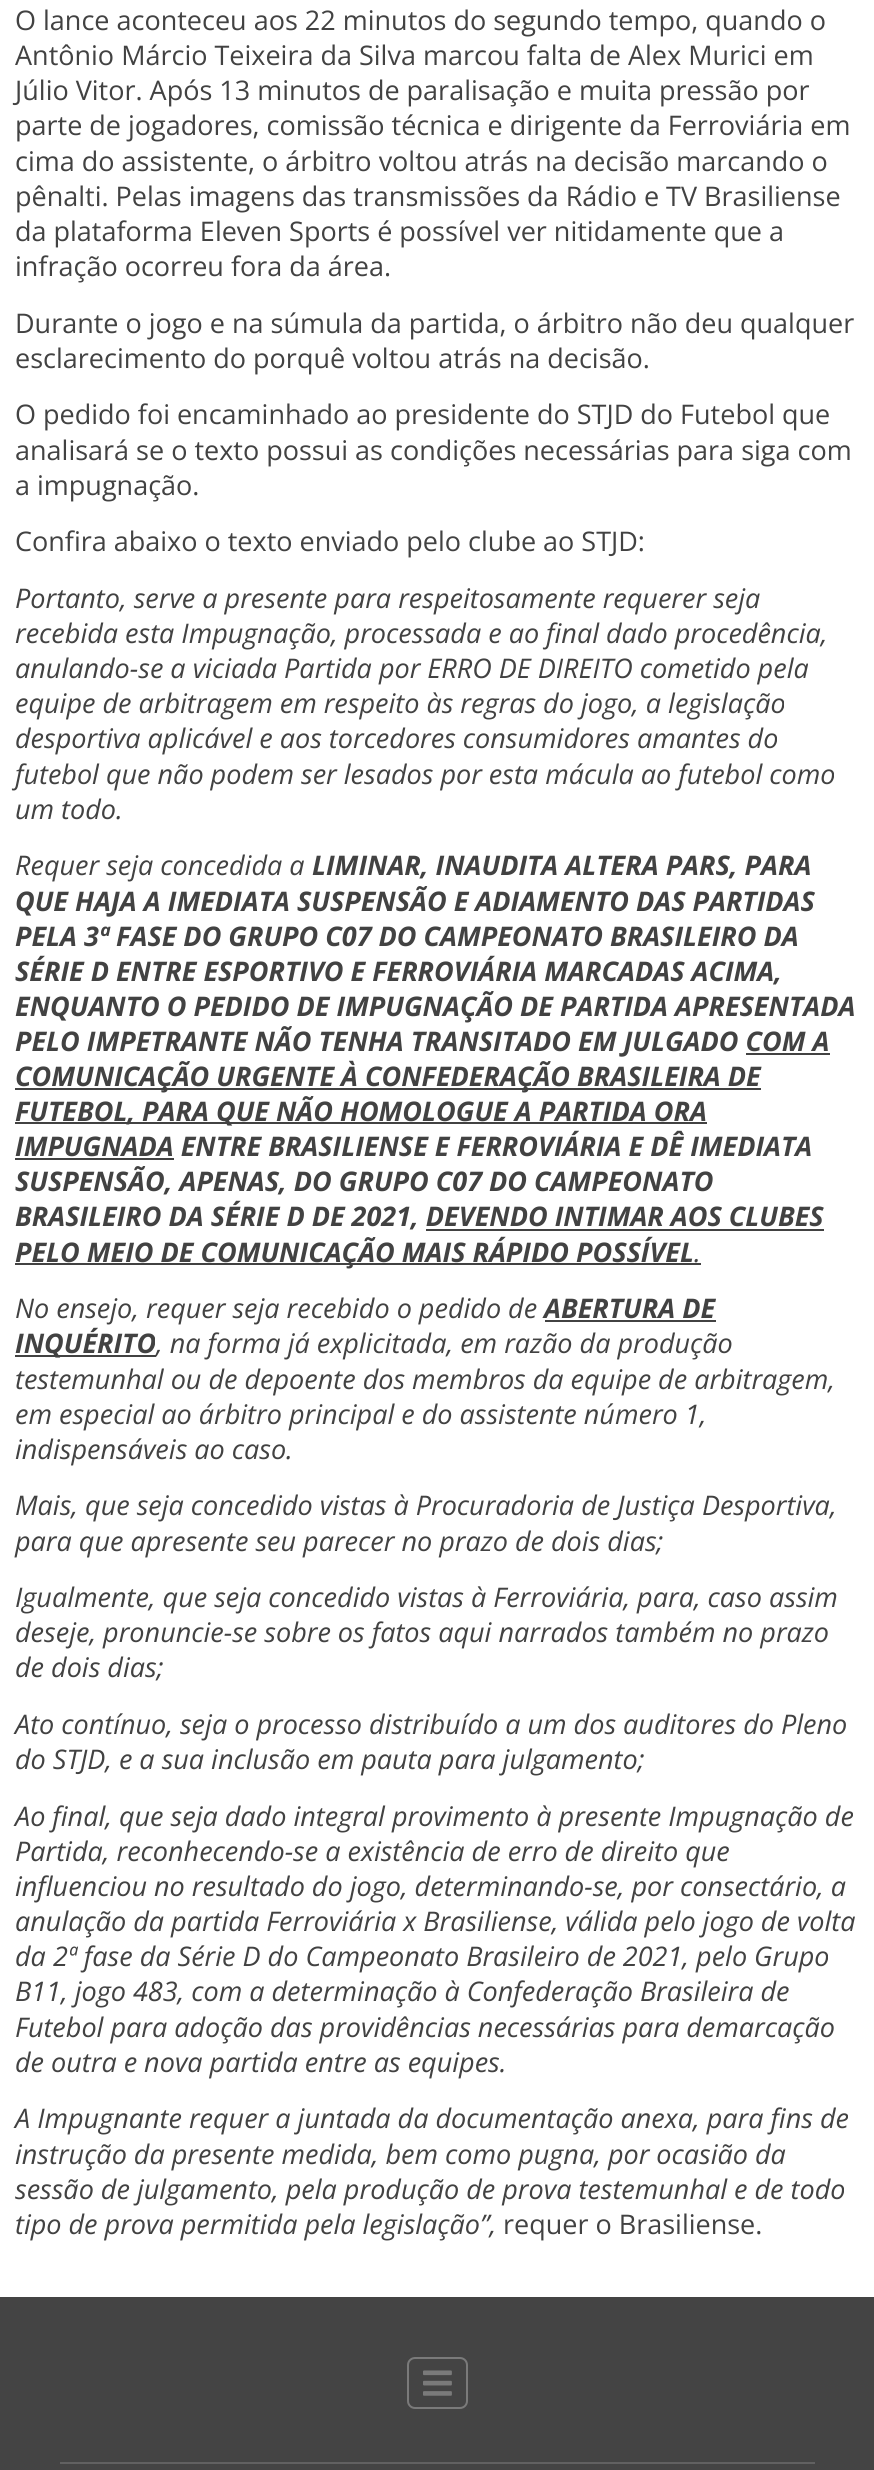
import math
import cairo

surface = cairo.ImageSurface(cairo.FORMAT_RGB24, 874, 2470)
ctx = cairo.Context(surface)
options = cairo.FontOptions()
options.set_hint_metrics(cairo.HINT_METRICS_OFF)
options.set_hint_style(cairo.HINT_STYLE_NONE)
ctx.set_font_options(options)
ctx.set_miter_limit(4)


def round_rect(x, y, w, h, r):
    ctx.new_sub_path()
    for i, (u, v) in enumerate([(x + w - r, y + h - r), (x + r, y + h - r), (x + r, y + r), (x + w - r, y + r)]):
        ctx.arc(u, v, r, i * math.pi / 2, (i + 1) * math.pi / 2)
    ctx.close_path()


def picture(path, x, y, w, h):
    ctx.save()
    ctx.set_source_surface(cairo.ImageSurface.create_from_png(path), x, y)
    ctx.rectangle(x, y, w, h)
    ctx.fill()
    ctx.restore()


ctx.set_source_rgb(1, 1, 1)
ctx.paint()
ctx.select_font_face("Open Sans")
ctx.set_font_size(27)
ctx.set_source_rgb(0.259, 0.259, 0.259)
ctx.move_to(15, 30)
ctx.show_text("O lance aconteceu aos 22 minutos do segundo tempo, quando o")
ctx.move_to(15, 65)
ctx.show_text("Antônio Márcio Teixeira da Silva marcou falta de Alex Murici em")
ctx.move_to(15, 100)
ctx.show_text("Júlio Vitor. Após 13 minutos de paralisação e muita pressão por")
ctx.move_to(15, 135)
ctx.show_text("parte de jogadores, comissão técnica e dirigente da Ferroviária em")
ctx.move_to(15, 171)
ctx.show_text("cima do assistente, o árbitro voltou atrás na decisão marcando o")
ctx.move_to(15, 206)
ctx.show_text("pênalti. Pelas imagens das transmissões da Rádio e TV Brasiliense")
ctx.move_to(15, 241)
ctx.show_text("da plataforma Eleven Sports é possível ver nitidamente que a")
ctx.move_to(15, 276)
ctx.show_text("infração ocorreu fora da área.")
ctx.move_to(15, 333)
ctx.show_text("Durante o jogo e na súmula da partida, o árbitro não deu qualquer")
ctx.move_to(15, 368)
ctx.show_text("esclarecimento do porquê voltou atrás na decisão.")
ctx.move_to(15, 424)
ctx.show_text("O pedido foi encaminhado ao presidente do STJD do Futebol que")
ctx.move_to(15, 460)
ctx.show_text("analisará se o texto possui as condições necessárias para siga com")
ctx.move_to(15, 495)
ctx.show_text("a impugnação.")
ctx.move_to(15, 551)
ctx.show_text("Confira abaixo o texto enviado pelo clube ao STJD:")
ctx.select_font_face("Open Sans", cairo.FONT_SLANT_ITALIC)
ctx.move_to(15, 608)
ctx.show_text("Portanto, serve a presente para respeitosamente requerer seja")
ctx.move_to(15, 643)
ctx.show_text("recebida esta Impugnação, processada e ao final dado procedência,")
ctx.move_to(15, 678)
ctx.show_text("anulando-se a viciada Partida por ERRO DE DIREITO cometido pela")
ctx.move_to(15, 713)
ctx.show_text("equipe de arbitragem em respeito às regras do jogo, a legislação")
ctx.move_to(15, 748)
ctx.show_text("desportiva aplicável e aos torcedores consumidores amantes do")
ctx.move_to(15, 784)
ctx.show_text("futebol que não podem ser lesados por esta mácula ao futebol como")
ctx.move_to(15, 819)
ctx.show_text("um todo.")
ctx.move_to(15, 875)
ctx.show_text("Requer seja concedida a")
ctx.select_font_face("Open Sans", cairo.FONT_SLANT_ITALIC, cairo.FONT_WEIGHT_BOLD)
ctx.move_to(312, 875)
ctx.show_text("LIMINAR, INAUDITA ALTERA PARS, PARA")
ctx.move_to(15, 911)
ctx.show_text("QUE HAJA A IMEDIATA SUSPENSÃO E ADIAMENTO DAS PARTIDAS")
ctx.move_to(15, 946)
ctx.show_text("PELA 3ª FASE DO GRUPO C07 DO CAMPEONATO BRASILEIRO DA")
ctx.move_to(15, 981)
ctx.show_text("SÉRIE D ENTRE ESPORTIVO E FERROVIÁRIA MARCADAS ACIMA,")
ctx.move_to(15, 1016)
ctx.show_text("ENQUANTO O PEDIDO DE IMPUGNAÇÃO DE PARTIDA APRESENTADA")
ctx.move_to(15, 1051)
ctx.show_text("PELO IMPETRANTE NÃO TENHA TRANSITADO EM JULGADO COM A")
ctx.rectangle(746, 1053, 84, 2)
ctx.fill()
ctx.rectangle(15, 1088, 746, 2)
ctx.fill()
ctx.move_to(15, 1086)
ctx.show_text("COMUNICAÇÃO URGENTE À CONFEDERAÇÃO BRASILEIRA DE")
ctx.rectangle(15, 1122, 692, 2)
ctx.fill()
ctx.move_to(15, 1121)
ctx.show_text("FUTEBOL, PARA QUE NÃO HOMOLOGUE A PARTIDA ORA")
ctx.move_to(15, 1156)
ctx.show_text("IMPUGNADA ENTRE BRASILIENSE E FERROVIÁRIA E DÊ IMEDIATA")
ctx.rectangle(15, 1158, 159, 2)
ctx.fill()
ctx.move_to(15, 1191)
ctx.show_text("SUSPENSÃO, APENAS, DO GRUPO C07 DO CAMPEONATO")
ctx.move_to(15, 1226)
ctx.show_text("BRASILEIRO DA SÉRIE D DE 2021, DEVENDO INTIMAR AOS CLUBES")
ctx.rectangle(426, 1229, 398, 2)
ctx.fill()
ctx.rectangle(15, 1263, 686, 2)
ctx.fill()
ctx.move_to(15, 1262)
ctx.show_text("PELO MEIO DE COMUNICAÇÃO MAIS RÁPIDO POSSÍVEL")
ctx.select_font_face("Open Sans", cairo.FONT_SLANT_ITALIC)
ctx.move_to(694, 1262)
ctx.show_text(".")
ctx.move_to(15, 1318)
ctx.show_text("No ensejo, requer seja recebido o pedido de")
ctx.select_font_face("Open Sans", cairo.FONT_SLANT_ITALIC, cairo.FONT_WEIGHT_BOLD)
ctx.move_to(544, 1318)
ctx.show_text("ABERTURA DE")
ctx.rectangle(545, 1320, 171, 2)
ctx.fill()
ctx.rectangle(15, 1355, 141, 2)
ctx.fill()
ctx.move_to(15, 1353)
ctx.show_text("INQUÉRITO")
ctx.select_font_face("Open Sans", cairo.FONT_SLANT_ITALIC)
ctx.move_to(156, 1353)
ctx.show_text(", na forma já explicitada, em razão da produção")
ctx.move_to(15, 1389)
ctx.show_text("testemunhal ou de depoente dos membros da equipe de arbitragem,")
ctx.move_to(15, 1424)
ctx.show_text("em especial ao árbitro principal e do assistente número 1,")
ctx.move_to(15, 1459)
ctx.show_text("indispensáveis ao caso.")
ctx.move_to(15, 1515)
ctx.show_text("Mais, que seja concedido vistas à Procuradoria de Justiça Desportiva,")
ctx.move_to(15, 1551)
ctx.show_text("para que apresente seu parecer no prazo de dois dias;")
ctx.move_to(15, 1607)
ctx.show_text("Igualmente, que seja concedido vistas à Ferroviária, para, caso assim")
ctx.move_to(15, 1642)
ctx.show_text("deseje, pronuncie-se sobre os fatos aqui narrados também no prazo")
ctx.move_to(15, 1677)
ctx.show_text("de dois dias;")
ctx.move_to(15, 1734)
ctx.show_text("Ato contínuo, seja o processo distribuído a um dos auditores do Pleno")
ctx.move_to(15, 1769)
ctx.show_text("do STJD, e a sua inclusão em pauta para julgamento;")
ctx.move_to(15, 1826)
ctx.show_text("Ao final, que seja dado integral provimento à presente Impugnação de")
ctx.move_to(15, 1861)
ctx.show_text("Partida, reconhecendo-se a existência de erro de direito que")
ctx.move_to(15, 1896)
ctx.show_text("influenciou no resultado do jogo, determinando-se, por consectário, a")
ctx.move_to(15, 1931)
ctx.show_text("anulação da partida Ferroviária x Brasiliense, válida pelo jogo de volta")
ctx.move_to(15, 1966)
ctx.show_text("da 2ª fase da Série D do Campeonato Brasileiro de 2021, pelo Grupo")
ctx.move_to(15, 2001)
ctx.show_text("B11, jogo 483, com a determinação à Confederação Brasileira de")
ctx.move_to(15, 2037)
ctx.show_text("Futebol para adoção das providências necessárias para demarcação")
ctx.move_to(15, 2072)
ctx.show_text("de outra e nova partida entre as equipes.")
ctx.move_to(15, 2128)
ctx.show_text("A Impugnante requer a juntada da documentação anexa, para fins de")
ctx.move_to(15, 2164)
ctx.show_text("instrução da presente medida, bem como pugna, por ocasião da")
ctx.move_to(15, 2199)
ctx.show_text("sessão de julgamento, pela produção de prova testemunhal e de todo")
ctx.move_to(15, 2234)
ctx.show_text("tipo de prova permitida pela legislação”,")
ctx.select_font_face("Open Sans")
ctx.move_to(503, 2234)
ctx.show_text("requer o Brasiliense.")
ctx.set_source_rgb(0.267, 0.267, 0.267)
ctx.rectangle(0, 2297, 874, 173)
ctx.fill()
round_rect(408, 2358, 59, 50, 7)
ctx.set_source_rgb(0.478, 0.478, 0.478)
ctx.stroke()
picture("img1.png", 423, 2370, 29, 26)
ctx.set_source_rgb(0.38, 0.38, 0.38)
ctx.rectangle(60, 2462, 755, 2)
ctx.fill()
surface.write_to_png("page.png")
